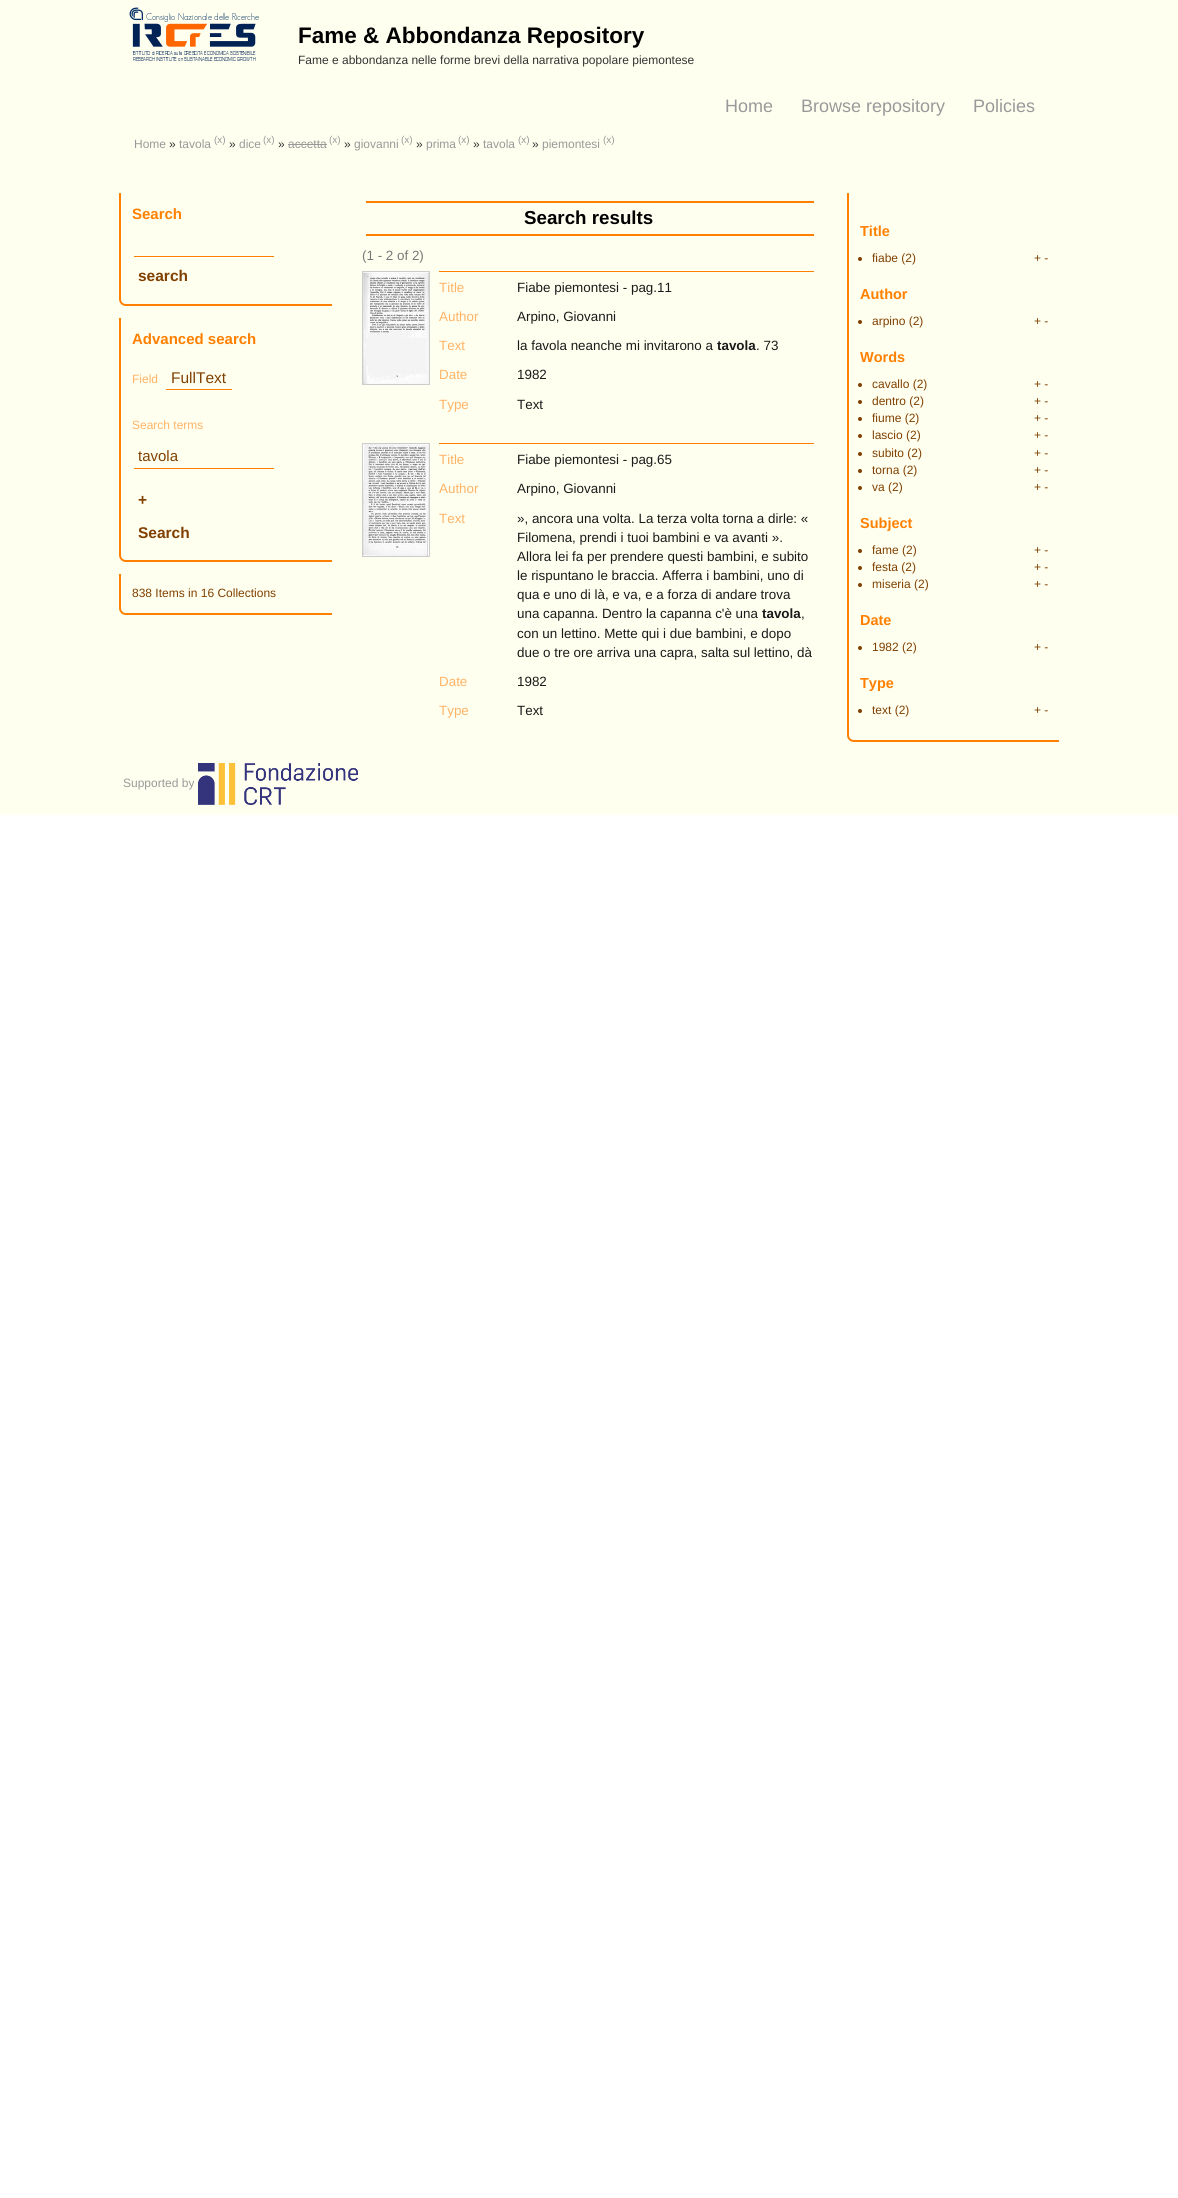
import math
import cairo

surface = cairo.ImageSurface(cairo.FORMAT_RGB24, 1178, 2198)
ctx = cairo.Context(surface)
options = cairo.FontOptions()
options.set_hint_metrics(cairo.HINT_METRICS_OFF)
options.set_hint_style(cairo.HINT_STYLE_NONE)
ctx.set_font_options(options)
ctx.set_miter_limit(4)


def picture(path, x, y, w, h):
    ctx.save()
    ctx.set_source_surface(cairo.ImageSurface.create_from_png(path), x, y)
    ctx.rectangle(x, y, w, h)
    ctx.fill()
    ctx.restore()


ctx.set_source_rgb(1, 1, 1)
ctx.paint()
ctx.set_source_rgb(1, 1, 0.941)
ctx.rectangle(0, 0, 1178, 815)
ctx.fill()
picture("img1.png", 129, 7, 130, 54)
ctx.select_font_face("Liberation Sans", cairo.FONT_SLANT_NORMAL, cairo.FONT_WEIGHT_BOLD)
ctx.set_font_size(22.5)
ctx.set_source_rgb(0, 0, 0)
ctx.move_to(298, 43)
ctx.show_text("Fame & Abbondanza Repository")
ctx.select_font_face("Liberation Sans")
ctx.set_font_size(12)
ctx.set_source_rgb(0.2, 0.2, 0.2)
ctx.move_to(298, 64)
ctx.show_text("Fame e abbondanza nelle forme brevi della narrativa popolare piemontese")
ctx.set_font_size(18)
ctx.set_source_rgb(0.6, 0.6, 0.6)
ctx.move_to(725, 112)
ctx.show_text("Home")
ctx.move_to(801, 112)
ctx.show_text("Browse repository")
ctx.move_to(973, 112)
ctx.show_text("Policies")
ctx.set_font_size(12)
ctx.move_to(134, 148)
ctx.show_text("Home")
ctx.set_source_rgb(0.2, 0.2, 0.2)
ctx.move_to(169, 148)
ctx.show_text("»")
ctx.set_source_rgb(0.6, 0.6, 0.6)
ctx.move_to(179, 148)
ctx.show_text("tavola")
ctx.set_font_size(10)
ctx.move_to(214, 143)
ctx.show_text("(x)")
ctx.set_font_size(12)
ctx.set_source_rgb(0.2, 0.2, 0.2)
ctx.move_to(229, 148)
ctx.show_text("»")
ctx.set_source_rgb(0.6, 0.6, 0.6)
ctx.move_to(239, 148)
ctx.show_text("dice")
ctx.set_font_size(10)
ctx.move_to(263, 143)
ctx.show_text("(x)")
ctx.set_font_size(12)
ctx.set_source_rgb(0.2, 0.2, 0.2)
ctx.move_to(278, 148)
ctx.show_text("»")
ctx.set_source_rgb(0.6, 0.6, 0.6)
ctx.move_to(288, 148)
ctx.show_text("accetta")
ctx.rectangle(288, 144, 39, 1)
ctx.fill()
ctx.set_font_size(10)
ctx.move_to(329, 143)
ctx.show_text("(x)")
ctx.set_font_size(12)
ctx.set_source_rgb(0.2, 0.2, 0.2)
ctx.move_to(344, 148)
ctx.show_text("»")
ctx.set_source_rgb(0.6, 0.6, 0.6)
ctx.move_to(354, 148)
ctx.show_text("giovanni")
ctx.set_font_size(10)
ctx.move_to(401, 143)
ctx.show_text("(x)")
ctx.set_font_size(12)
ctx.set_source_rgb(0.2, 0.2, 0.2)
ctx.move_to(416, 148)
ctx.show_text("»")
ctx.set_source_rgb(0.6, 0.6, 0.6)
ctx.move_to(426, 148)
ctx.show_text("prima")
ctx.set_font_size(10)
ctx.move_to(458, 143)
ctx.show_text("(x)")
ctx.set_font_size(12)
ctx.set_source_rgb(0.2, 0.2, 0.2)
ctx.move_to(473, 148)
ctx.show_text("»")
ctx.set_source_rgb(0.6, 0.6, 0.6)
ctx.move_to(483, 148)
ctx.show_text("tavola")
ctx.set_font_size(10)
ctx.move_to(518, 143)
ctx.show_text("(x)")
ctx.set_font_size(12)
ctx.set_source_rgb(0.2, 0.2, 0.2)
ctx.move_to(532, 148)
ctx.show_text("»")
ctx.set_source_rgb(0.6, 0.6, 0.6)
ctx.move_to(542, 148)
ctx.show_text("piemontesi")
ctx.set_font_size(10)
ctx.move_to(603, 143)
ctx.show_text("(x)")
ctx.set_source_rgb(1, 0.502, 0)
ctx.set_fill_rule(cairo.FILL_RULE_EVEN_ODD)
ctx.new_path()
ctx.move_to(119, 193)
ctx.line_to(325, 193)
ctx.curve_to(329, 193, 332, 196, 332, 200)
ctx.line_to(332, 306)
ctx.line_to(126, 306)
ctx.curve_to(122, 306, 119, 303, 119, 299)
ctx.close_path()
ctx.move_to(121, 193)
ctx.line_to(325, 193)
ctx.curve_to(329, 193, 332, 196, 332, 200)
ctx.line_to(332, 304)
ctx.line_to(126, 304)
ctx.curve_to(123, 304, 121, 302, 121, 299)
ctx.close_path()
ctx.fill()
ctx.select_font_face("Liberation Sans", cairo.FONT_SLANT_NORMAL, cairo.FONT_WEIGHT_BOLD)
ctx.set_font_size(15)
ctx.move_to(132, 219)
ctx.show_text("Search")
ctx.rectangle(134, 256, 140, 1)
ctx.fill()
ctx.set_font_size(15.5)
ctx.set_source_rgb(0.502, 0.251, 0)
ctx.move_to(138, 281)
ctx.show_text("search")
ctx.set_source_rgb(1, 0.502, 0)
ctx.new_path()
ctx.move_to(119, 318)
ctx.line_to(325, 318)
ctx.curve_to(329, 318, 332, 321, 332, 325)
ctx.line_to(332, 562)
ctx.line_to(126, 562)
ctx.curve_to(122, 562, 119, 559, 119, 555)
ctx.close_path()
ctx.move_to(121, 318)
ctx.line_to(325, 318)
ctx.curve_to(329, 318, 332, 321, 332, 325)
ctx.line_to(332, 560)
ctx.line_to(126, 560)
ctx.curve_to(123, 560, 121, 558, 121, 555)
ctx.close_path()
ctx.fill()
ctx.set_font_size(15)
ctx.move_to(132, 344)
ctx.show_text("Advanced search")
ctx.select_font_face("Liberation Sans")
ctx.set_font_size(12)
ctx.set_source_rgb(1, 0.702, 0.4)
ctx.move_to(132, 383)
ctx.show_text("Field")
ctx.set_source_rgb(1, 0.502, 0)
ctx.rectangle(166, 389, 66, 1)
ctx.fill()
ctx.set_font_size(15.5)
ctx.set_source_rgb(0.502, 0.251, 0)
ctx.move_to(171, 383)
ctx.show_text("FullText")
ctx.set_font_size(12)
ctx.set_source_rgb(1, 0.702, 0.4)
ctx.move_to(132, 429)
ctx.show_text("Search terms")
ctx.set_source_rgb(1, 0.502, 0)
ctx.rectangle(134, 468, 140, 1)
ctx.fill()
ctx.set_font_size(15)
ctx.set_source_rgb(0.502, 0.251, 0)
ctx.move_to(138, 461)
ctx.show_text("tavola")
ctx.select_font_face("Liberation Sans", cairo.FONT_SLANT_NORMAL, cairo.FONT_WEIGHT_BOLD)
ctx.set_font_size(15.5)
ctx.move_to(138, 505)
ctx.show_text("+")
ctx.move_to(138, 538)
ctx.show_text("Search")
ctx.set_source_rgb(1, 0.502, 0)
ctx.new_path()
ctx.move_to(119, 574)
ctx.line_to(325, 574)
ctx.curve_to(329, 574, 332, 577, 332, 581)
ctx.line_to(332, 615)
ctx.line_to(126, 615)
ctx.curve_to(122, 615, 119, 612, 119, 608)
ctx.close_path()
ctx.move_to(121, 574)
ctx.line_to(325, 574)
ctx.curve_to(329, 574, 332, 577, 332, 581)
ctx.line_to(332, 613)
ctx.line_to(126, 613)
ctx.curve_to(123, 613, 121, 611, 121, 608)
ctx.close_path()
ctx.fill()
ctx.select_font_face("Liberation Sans")
ctx.set_font_size(12)
ctx.set_source_rgb(0.502, 0.251, 0)
ctx.move_to(132, 597)
ctx.show_text("838 Items in 16 Collections")
ctx.set_source_rgb(1, 0.502, 0)
ctx.rectangle(366, 201, 448, 2)
ctx.fill()
ctx.rectangle(366, 234, 448, 2)
ctx.fill()
ctx.select_font_face("Liberation Sans", cairo.FONT_SLANT_NORMAL, cairo.FONT_WEIGHT_BOLD)
ctx.set_font_size(18.75)
ctx.set_source_rgb(0, 0, 0)
ctx.move_to(524, 224)
ctx.show_text("Search results")
ctx.select_font_face("Liberation Sans")
ctx.set_font_size(13.4)
ctx.set_source_rgb(0.467, 0.467, 0.467)
ctx.move_to(362, 260)
ctx.show_text("(1 - 2 of 2)")
ctx.rectangle(362.5, 271.5, 67, 113)
ctx.set_source_rgb(0.8, 0.8, 0.8)
ctx.set_line_width(1)
ctx.stroke()
picture("img2.png", 363, 272, 66, 112)
ctx.set_source_rgb(1, 0.502, 0)
ctx.rectangle(439, 271, 375, 1)
ctx.fill()
ctx.set_source_rgb(1, 0.702, 0.4)
ctx.move_to(439, 292)
ctx.show_text("Title")
ctx.set_source_rgb(0.102, 0.102, 0.102)
ctx.move_to(517, 292)
ctx.show_text("Fiabe piemontesi - pag.11")
ctx.set_source_rgb(1, 0.702, 0.4)
ctx.move_to(439, 321)
ctx.show_text("Author")
ctx.set_source_rgb(0.102, 0.102, 0.102)
ctx.move_to(517, 321)
ctx.show_text("Arpino, Giovanni")
ctx.set_source_rgb(1, 0.702, 0.4)
ctx.move_to(439, 350)
ctx.show_text("Text")
ctx.set_source_rgb(0.102, 0.102, 0.102)
ctx.move_to(517, 350)
ctx.show_text("la favola neanche mi invitarono a")
ctx.select_font_face("Liberation Sans", cairo.FONT_SLANT_NORMAL, cairo.FONT_WEIGHT_BOLD)
ctx.move_to(717, 350)
ctx.show_text("tavola")
ctx.select_font_face("Liberation Sans")
ctx.move_to(756, 350)
ctx.show_text(". 73")
ctx.set_source_rgb(1, 0.702, 0.4)
ctx.move_to(439, 379)
ctx.show_text("Date")
ctx.set_source_rgb(0.102, 0.102, 0.102)
ctx.move_to(517, 379)
ctx.show_text("1982")
ctx.set_source_rgb(1, 0.702, 0.4)
ctx.move_to(439, 409)
ctx.show_text("Type")
ctx.set_source_rgb(0.102, 0.102, 0.102)
ctx.move_to(517, 409)
ctx.show_text("Text")
ctx.rectangle(362.5, 443.5, 67, 113)
ctx.set_source_rgb(0.8, 0.8, 0.8)
ctx.stroke()
picture("img3.png", 363, 444, 66, 112)
ctx.set_source_rgb(1, 0.502, 0)
ctx.rectangle(439, 443, 375, 1)
ctx.fill()
ctx.set_source_rgb(1, 0.702, 0.4)
ctx.move_to(439, 464)
ctx.show_text("Title")
ctx.set_source_rgb(0.102, 0.102, 0.102)
ctx.move_to(517, 464)
ctx.show_text("Fiabe piemontesi - pag.65")
ctx.set_source_rgb(1, 0.702, 0.4)
ctx.move_to(439, 493)
ctx.show_text("Author")
ctx.set_source_rgb(0.102, 0.102, 0.102)
ctx.move_to(517, 493)
ctx.show_text("Arpino, Giovanni")
ctx.set_source_rgb(1, 0.702, 0.4)
ctx.move_to(439, 523)
ctx.show_text("Text")
ctx.set_source_rgb(0.102, 0.102, 0.102)
ctx.move_to(517, 523)
ctx.show_text("», ancora una volta. La terza volta torna a dirle: «")
ctx.move_to(517, 542)
ctx.show_text("Filomena, prendi i tuoi bambini e va avanti ».")
ctx.move_to(517, 561)
ctx.show_text("Allora lei fa per prendere questi bambini, e subito")
ctx.move_to(517, 580)
ctx.show_text("le rispuntano le braccia. Afferra i bambini, uno di")
ctx.move_to(517, 599)
ctx.show_text("qua e uno di là, e va, e a forza di andare trova")
ctx.move_to(517, 618)
ctx.show_text("una capanna. Dentro la capanna c'è una")
ctx.select_font_face("Liberation Sans", cairo.FONT_SLANT_NORMAL, cairo.FONT_WEIGHT_BOLD)
ctx.move_to(762, 618)
ctx.show_text("tavola")
ctx.select_font_face("Liberation Sans")
ctx.move_to(801, 618)
ctx.show_text(",")
ctx.move_to(517, 638)
ctx.show_text("con un lettino. Mette qui i due bambini, e dopo")
ctx.move_to(517, 657)
ctx.show_text("due o tre ore arriva una capra, salta sul lettino, dà")
ctx.set_source_rgb(1, 0.702, 0.4)
ctx.move_to(439, 686)
ctx.show_text("Date")
ctx.set_source_rgb(0.102, 0.102, 0.102)
ctx.move_to(517, 686)
ctx.show_text("1982")
ctx.set_source_rgb(1, 0.702, 0.4)
ctx.move_to(439, 715)
ctx.show_text("Type")
ctx.set_source_rgb(0.102, 0.102, 0.102)
ctx.move_to(517, 715)
ctx.show_text("Text")
ctx.set_source_rgb(1, 0.502, 0)
ctx.new_path()
ctx.move_to(847, 193)
ctx.line_to(1052, 193)
ctx.curve_to(1056, 193, 1059, 196, 1059, 200)
ctx.line_to(1059, 742)
ctx.line_to(854, 742)
ctx.curve_to(850, 742, 847, 739, 847, 735)
ctx.close_path()
ctx.move_to(849, 193)
ctx.line_to(1052, 193)
ctx.curve_to(1056, 193, 1059, 196, 1059, 200)
ctx.line_to(1059, 740)
ctx.line_to(854, 740)
ctx.curve_to(851, 740, 849, 738, 849, 735)
ctx.close_path()
ctx.fill()
ctx.select_font_face("Liberation Sans", cairo.FONT_SLANT_NORMAL, cairo.FONT_WEIGHT_BOLD)
ctx.set_font_size(14.5)
ctx.move_to(860, 236)
ctx.show_text("Title")
ctx.set_source_rgb(0.502, 0.251, 0)
ctx.new_path()
ctx.arc(860, 259, 2, 0, 2 * math.pi)
ctx.fill()
ctx.select_font_face("Liberation Sans")
ctx.set_font_size(12)
ctx.move_to(872, 262)
ctx.show_text("fiabe (2)")
ctx.move_to(1034, 262)
ctx.show_text("+ -")
ctx.select_font_face("Liberation Sans", cairo.FONT_SLANT_NORMAL, cairo.FONT_WEIGHT_BOLD)
ctx.set_font_size(14.5)
ctx.set_source_rgb(1, 0.502, 0)
ctx.move_to(860, 299)
ctx.show_text("Author")
ctx.set_source_rgb(0.502, 0.251, 0)
ctx.new_path()
ctx.arc(860, 322, 2, 0, 2 * math.pi)
ctx.fill()
ctx.select_font_face("Liberation Sans")
ctx.set_font_size(12)
ctx.move_to(872, 325)
ctx.show_text("arpino (2)")
ctx.move_to(1034, 325)
ctx.show_text("+ -")
ctx.select_font_face("Liberation Sans", cairo.FONT_SLANT_NORMAL, cairo.FONT_WEIGHT_BOLD)
ctx.set_font_size(14.5)
ctx.set_source_rgb(1, 0.502, 0)
ctx.move_to(860, 362)
ctx.show_text("Words")
ctx.set_source_rgb(0.502, 0.251, 0)
ctx.new_path()
ctx.arc(860, 385, 2, 0, 2 * math.pi)
ctx.fill()
ctx.select_font_face("Liberation Sans")
ctx.set_font_size(12)
ctx.move_to(872, 388)
ctx.show_text("cavallo (2)")
ctx.move_to(1034, 388)
ctx.show_text("+ -")
ctx.new_path()
ctx.arc(860, 402, 2, 0, 2 * math.pi)
ctx.fill()
ctx.move_to(872, 405)
ctx.show_text("dentro (2)")
ctx.move_to(1034, 405)
ctx.show_text("+ -")
ctx.new_path()
ctx.arc(860, 419, 2, 0, 2 * math.pi)
ctx.fill()
ctx.move_to(872, 422)
ctx.show_text("fiume (2)")
ctx.move_to(1034, 422)
ctx.show_text("+ -")
ctx.new_path()
ctx.arc(860, 436, 2, 0, 2 * math.pi)
ctx.fill()
ctx.move_to(872, 439)
ctx.show_text("lascio (2)")
ctx.move_to(1034, 439)
ctx.show_text("+ -")
ctx.new_path()
ctx.arc(860, 454, 2, 0, 2 * math.pi)
ctx.fill()
ctx.move_to(872, 457)
ctx.show_text("subito (2)")
ctx.move_to(1034, 457)
ctx.show_text("+ -")
ctx.new_path()
ctx.arc(860, 471, 2, 0, 2 * math.pi)
ctx.fill()
ctx.move_to(872, 474)
ctx.show_text("torna (2)")
ctx.move_to(1034, 474)
ctx.show_text("+ -")
ctx.new_path()
ctx.arc(860, 488, 2, 0, 2 * math.pi)
ctx.fill()
ctx.move_to(872, 491)
ctx.show_text("va (2)")
ctx.move_to(1034, 491)
ctx.show_text("+ -")
ctx.select_font_face("Liberation Sans", cairo.FONT_SLANT_NORMAL, cairo.FONT_WEIGHT_BOLD)
ctx.set_font_size(14.5)
ctx.set_source_rgb(1, 0.502, 0)
ctx.move_to(860, 528)
ctx.show_text("Subject")
ctx.set_source_rgb(0.502, 0.251, 0)
ctx.new_path()
ctx.arc(860, 551, 2, 0, 2 * math.pi)
ctx.fill()
ctx.select_font_face("Liberation Sans")
ctx.set_font_size(12)
ctx.move_to(872, 554)
ctx.show_text("fame (2)")
ctx.move_to(1034, 554)
ctx.show_text("+ -")
ctx.new_path()
ctx.arc(860, 568, 2, 0, 2 * math.pi)
ctx.fill()
ctx.move_to(872, 571)
ctx.show_text("festa (2)")
ctx.move_to(1034, 571)
ctx.show_text("+ -")
ctx.new_path()
ctx.arc(860, 585, 2, 0, 2 * math.pi)
ctx.fill()
ctx.move_to(872, 588)
ctx.show_text("miseria (2)")
ctx.move_to(1034, 588)
ctx.show_text("+ -")
ctx.select_font_face("Liberation Sans", cairo.FONT_SLANT_NORMAL, cairo.FONT_WEIGHT_BOLD)
ctx.set_font_size(14.5)
ctx.set_source_rgb(1, 0.502, 0)
ctx.move_to(860, 625)
ctx.show_text("Date")
ctx.set_source_rgb(0.502, 0.251, 0)
ctx.new_path()
ctx.arc(860, 648, 2, 0, 2 * math.pi)
ctx.fill()
ctx.select_font_face("Liberation Sans")
ctx.set_font_size(12)
ctx.move_to(872, 651)
ctx.show_text("1982 (2)")
ctx.move_to(1034, 651)
ctx.show_text("+ -")
ctx.select_font_face("Liberation Sans", cairo.FONT_SLANT_NORMAL, cairo.FONT_WEIGHT_BOLD)
ctx.set_font_size(14.5)
ctx.set_source_rgb(1, 0.502, 0)
ctx.move_to(860, 688)
ctx.show_text("Type")
ctx.set_source_rgb(0.502, 0.251, 0)
ctx.new_path()
ctx.arc(860, 711, 2, 0, 2 * math.pi)
ctx.fill()
ctx.select_font_face("Liberation Sans")
ctx.set_font_size(12)
ctx.move_to(872, 714)
ctx.show_text("text (2)")
ctx.move_to(1034, 714)
ctx.show_text("+ -")
ctx.set_source_rgb(0.6, 0.6, 0.6)
ctx.move_to(123, 787)
ctx.show_text("Supported by")
picture("img4.png", 198, 763, 160, 42)
surface.write_to_png("page.png")
